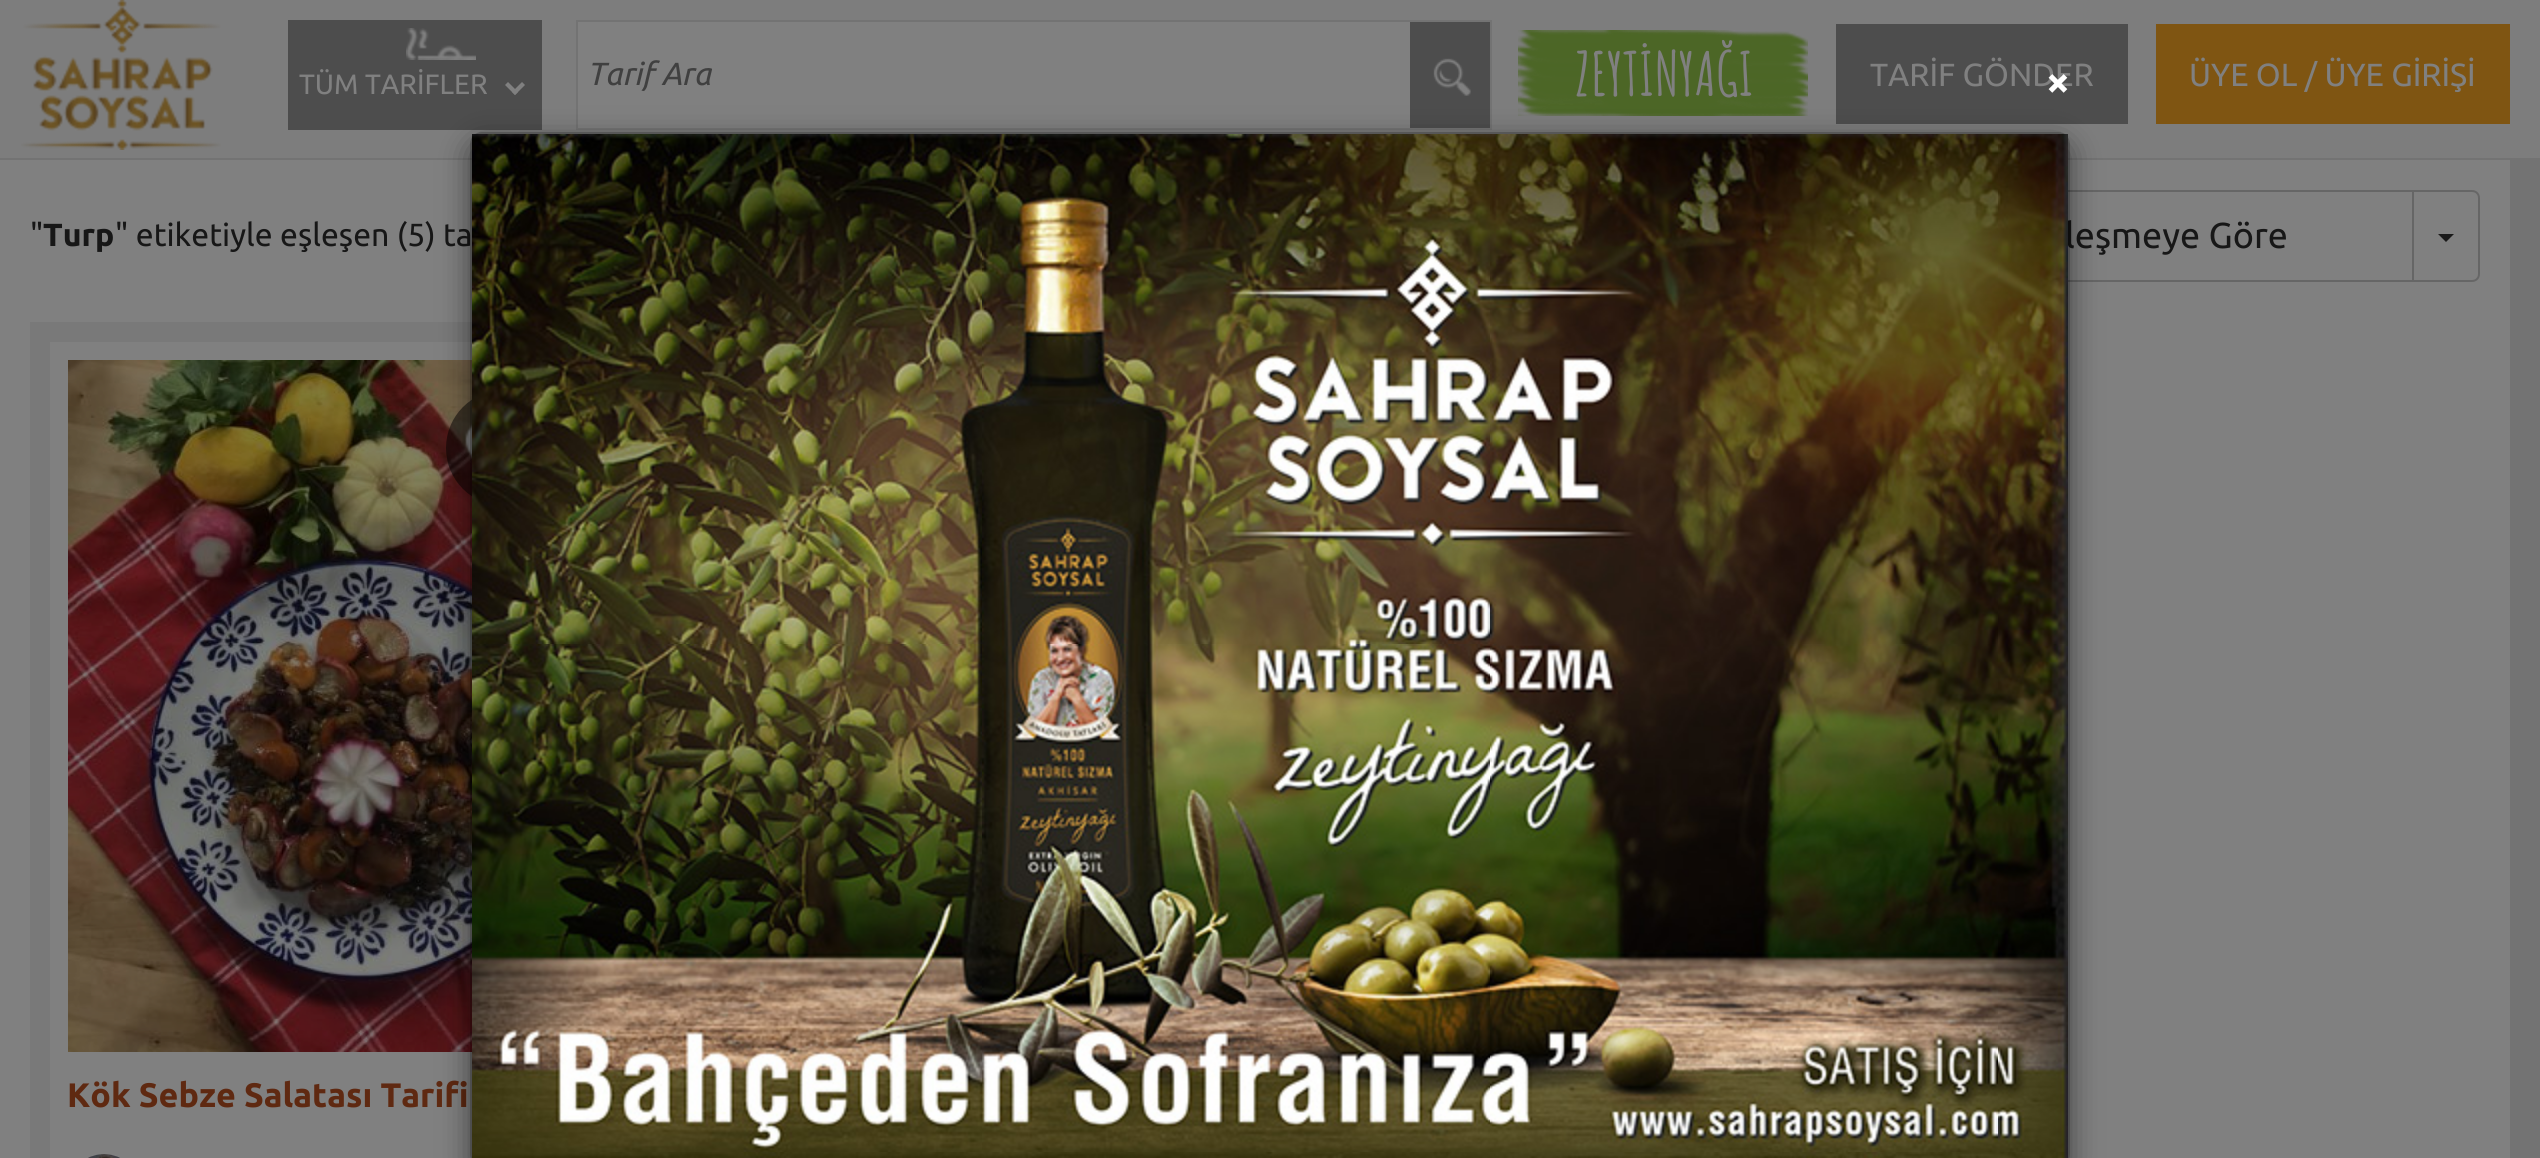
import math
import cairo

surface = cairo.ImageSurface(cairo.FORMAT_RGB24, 2540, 1158)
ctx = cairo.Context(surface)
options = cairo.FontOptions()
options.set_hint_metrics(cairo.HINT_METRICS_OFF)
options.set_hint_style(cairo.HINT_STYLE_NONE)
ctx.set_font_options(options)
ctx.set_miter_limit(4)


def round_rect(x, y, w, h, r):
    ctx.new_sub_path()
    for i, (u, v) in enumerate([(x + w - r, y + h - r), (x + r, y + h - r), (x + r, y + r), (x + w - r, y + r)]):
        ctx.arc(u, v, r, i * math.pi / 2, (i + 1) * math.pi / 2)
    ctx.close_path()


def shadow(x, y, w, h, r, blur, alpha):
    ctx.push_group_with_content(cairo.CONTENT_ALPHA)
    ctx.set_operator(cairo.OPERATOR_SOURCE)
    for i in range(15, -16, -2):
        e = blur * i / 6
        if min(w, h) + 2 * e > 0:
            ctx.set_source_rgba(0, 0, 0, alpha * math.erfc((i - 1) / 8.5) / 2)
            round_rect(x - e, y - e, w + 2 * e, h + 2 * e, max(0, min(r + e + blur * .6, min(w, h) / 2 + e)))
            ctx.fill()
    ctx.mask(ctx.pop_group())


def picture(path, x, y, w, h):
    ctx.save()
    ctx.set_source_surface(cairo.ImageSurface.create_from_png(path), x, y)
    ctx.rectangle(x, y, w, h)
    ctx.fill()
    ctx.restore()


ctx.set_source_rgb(0.451, 0.451, 0.451)
ctx.paint()
ctx.set_source_rgb(0.49, 0.49, 0.49)
ctx.rectangle(0, 0, 2540, 158)
ctx.fill()
picture("img1.png", 21, 0, 200, 150)
ctx.set_source_rgb(0.302, 0.302, 0.302)
ctx.rectangle(288, 20, 254, 110)
ctx.fill()
picture("img2.png", 406, 28, 70, 32)
ctx.select_font_face("Ubuntu")
ctx.set_font_size(28)
ctx.set_source_rgb(0.502, 0.502, 0.502)
ctx.move_to(299, 94)
ctx.show_text("TÜM TARİFLER")
ctx.new_path()
ctx.move_to(525, 85)
ctx.line_to(515, 95)
ctx.line_to(512, 92)
ctx.line_to(522, 82)
ctx.close_path()
ctx.fill()
ctx.new_path()
ctx.move_to(518, 92)
ctx.line_to(515, 95)
ctx.line_to(505, 85)
ctx.line_to(508, 82)
ctx.close_path()
ctx.fill()
ctx.rectangle(578, 22, 832, 106)
ctx.fill()
ctx.rectangle(577, 21, 914, 108)
ctx.set_source_rgb(0.451, 0.451, 0.451)
ctx.stroke()
ctx.select_font_face("Ubuntu", cairo.FONT_SLANT_ITALIC)
ctx.set_font_size(32)
ctx.set_source_rgb(0.251, 0.251, 0.251)
ctx.move_to(587, 85)
ctx.show_text("Tarif Ara")
ctx.set_source_rgb(0.302, 0.302, 0.302)
ctx.rectangle(1410, 22, 80, 106)
ctx.fill()
picture("img3.png", 1433, 58, 38, 38)
picture("img4.png", 1518, 30, 290, 86)
ctx.select_font_face("Amatic SC", cairo.FONT_SLANT_NORMAL, cairo.FONT_WEIGHT_BOLD)
ctx.set_font_size(60)
ctx.set_source_rgb(0.502, 0.502, 0.502)
ctx.move_to(1575, 96)
ctx.show_text("ZEYTİNYAĞI")
ctx.set_source_rgb(0.302, 0.302, 0.302)
ctx.rectangle(1836, 24, 292, 100)
ctx.fill()
ctx.select_font_face("Ubuntu")
ctx.set_font_size(32)
ctx.set_source_rgb(0.502, 0.502, 0.502)
ctx.move_to(1870, 86)
ctx.show_text("TARİF GÖNDER")
ctx.set_source_rgb(0.498, 0.333, 0.071)
ctx.rectangle(2156, 24, 354, 100)
ctx.fill()
ctx.set_source_rgb(0.502, 0.502, 0.502)
ctx.move_to(2189, 86)
ctx.show_text("ÜYE OL / ÜYE GİRİŞİ")
ctx.rectangle(0, 160, 2510, 998)
ctx.fill()
ctx.set_source_rgb(0.09, 0.09, 0.09)
ctx.move_to(30, 246)
ctx.show_text("\"")
ctx.select_font_face("Ubuntu", cairo.FONT_SLANT_NORMAL, cairo.FONT_WEIGHT_BOLD)
ctx.move_to(43, 246)
ctx.show_text("Turp")
ctx.select_font_face("Ubuntu")
ctx.move_to(115, 246)
ctx.show_text("\" etiketiyle eşleşen (5) ta")
ctx.rectangle(1995, 191, 418, 90)
ctx.set_source_rgb(0.4, 0.4, 0.4)
ctx.stroke()
ctx.set_font_size(36)
ctx.set_source_rgb(0.09, 0.09, 0.09)
ctx.move_to(2065, 248)
ctx.show_text("leşmeye Göre")
ctx.set_source_rgb(0.502, 0.502, 0.502)
ctx.new_path()
ctx.move_to(2413, 191)
ctx.line_to(2472, 191)
ctx.curve_to(2476, 191, 2479, 194, 2479, 198)
ctx.line_to(2479, 274)
ctx.curve_to(2479, 278, 2476, 281, 2472, 281)
ctx.line_to(2413, 281)
ctx.close_path()
ctx.fill_preserve()
ctx.set_source_rgb(0.4, 0.4, 0.4)
ctx.stroke()
ctx.set_source_rgb(0.102, 0.102, 0.102)
ctx.new_path()
ctx.move_to(2438, 234)
ctx.line_to(2454, 234)
ctx.line_to(2446, 242)
ctx.close_path()
ctx.fill()
ctx.rectangle(40, 332, 580, 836)
ctx.set_source_rgb(0.475, 0.475, 0.475)
ctx.set_line_width(20)
ctx.stroke()
picture("img5.png", 68, 360, 404, 692)
ctx.set_source_rgba(0, 0, 0, 0.5)
ctx.arc(504, 448, 58, 0, 2 * math.pi)
ctx.fill()
picture("img6.png", 465, 424, 7, 35)
ctx.select_font_face("Ubuntu", cairo.FONT_SLANT_NORMAL, cairo.FONT_WEIGHT_BOLD)
ctx.set_font_size(34)
ctx.set_source_rgb(0.373, 0.161, 0.067)
ctx.move_to(67, 1107)
ctx.show_text("Kök Sebze Salatası Tarifi")
picture("img7.png", 88, 1154, 32, 4)
ctx.set_font_size(42)
ctx.set_source_rgb(1, 1, 1)
ctx.move_to(2046, 96)
ctx.show_text("×")
ctx.set_source_rgb(0, 0, 0)
shadow(470, 142, 1600, 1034, 12, 15, 0.5)
round_rect(471, 133, 1598, 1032, 11)
ctx.set_source_rgba(0, 0, 0, 0.2)
ctx.set_line_width(2)
ctx.stroke()
picture("img8.png", 472, 134, 1596, 1024)
surface.write_to_png("page.png")
